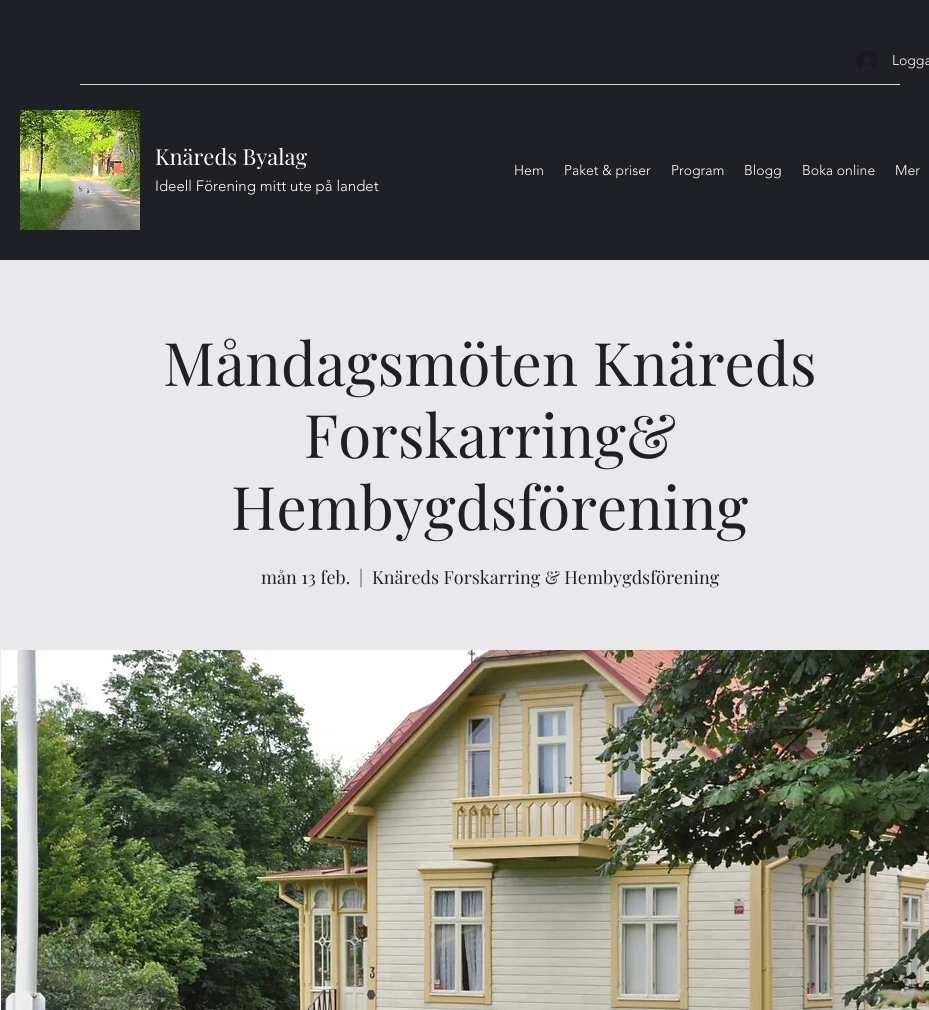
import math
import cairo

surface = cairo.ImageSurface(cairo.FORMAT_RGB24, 929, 1010)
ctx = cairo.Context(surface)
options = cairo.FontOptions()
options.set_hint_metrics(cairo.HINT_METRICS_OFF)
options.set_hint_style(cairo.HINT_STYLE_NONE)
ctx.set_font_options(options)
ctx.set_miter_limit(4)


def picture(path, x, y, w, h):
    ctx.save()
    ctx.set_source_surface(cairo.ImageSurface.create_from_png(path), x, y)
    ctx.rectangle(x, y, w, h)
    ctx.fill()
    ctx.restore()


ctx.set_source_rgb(1, 1, 1)
ctx.paint()
ctx.set_source_rgb(0.118, 0.125, 0.145)
ctx.rectangle(0, 0, 929, 260)
ctx.fill()
picture("img1.png", 856, 50, 22, 22)
ctx.select_font_face("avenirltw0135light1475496 Light")
ctx.set_font_size(14)
ctx.set_source_rgb(1, 1, 1)
ctx.move_to(892, 65)
ctx.show_text("Logga")
ctx.set_source_rgb(0.867, 0.871, 0.871)
ctx.rectangle(80, 84, 820, 1)
ctx.fill()
picture("img2.png", 20, 110, 120, 120)
ctx.select_font_face("Playfair Display")
ctx.set_font_size(22)
ctx.set_source_rgb(1, 1, 1)
ctx.move_to(155, 165)
ctx.show_text("Knäreds Byalag")
ctx.select_font_face("avenirltw0135light1475496 Light")
ctx.set_font_size(15)
ctx.move_to(155, 191)
ctx.show_text("Ideell Förening mitt ute på landet")
ctx.set_font_size(14)
ctx.move_to(514, 175)
ctx.show_text("Hem")
ctx.move_to(564, 175)
ctx.show_text("Paket & priser")
ctx.move_to(671, 175)
ctx.show_text("Program")
ctx.move_to(744, 175)
ctx.show_text("Blogg")
ctx.move_to(802, 175)
ctx.show_text("Boka online")
ctx.move_to(895, 175)
ctx.show_text("Mer")
ctx.set_source_rgb(0.914, 0.914, 0.918)
ctx.rectangle(0, 260, 929, 666)
ctx.fill()
ctx.select_font_face("Playfair Display")
ctx.set_font_size(60)
ctx.set_source_rgb(0.118, 0.125, 0.145)
ctx.move_to(163, 386)
ctx.show_text("Måndagsmöten Knäreds")
ctx.move_to(304, 458)
ctx.show_text("Forskarring&")
ctx.move_to(231, 530)
ctx.show_text("Hembygdsförening")
ctx.set_font_size(18)
ctx.move_to(261, 584)
ctx.show_text("mån 13 feb.")
ctx.move_to(359, 584)
ctx.show_text("|")
ctx.move_to(372, 584)
ctx.show_text("Knäreds Forskarring & Hembygdsförening")
picture("img3.png", 1, 650, 928, 360)
surface.write_to_png("page.png")
